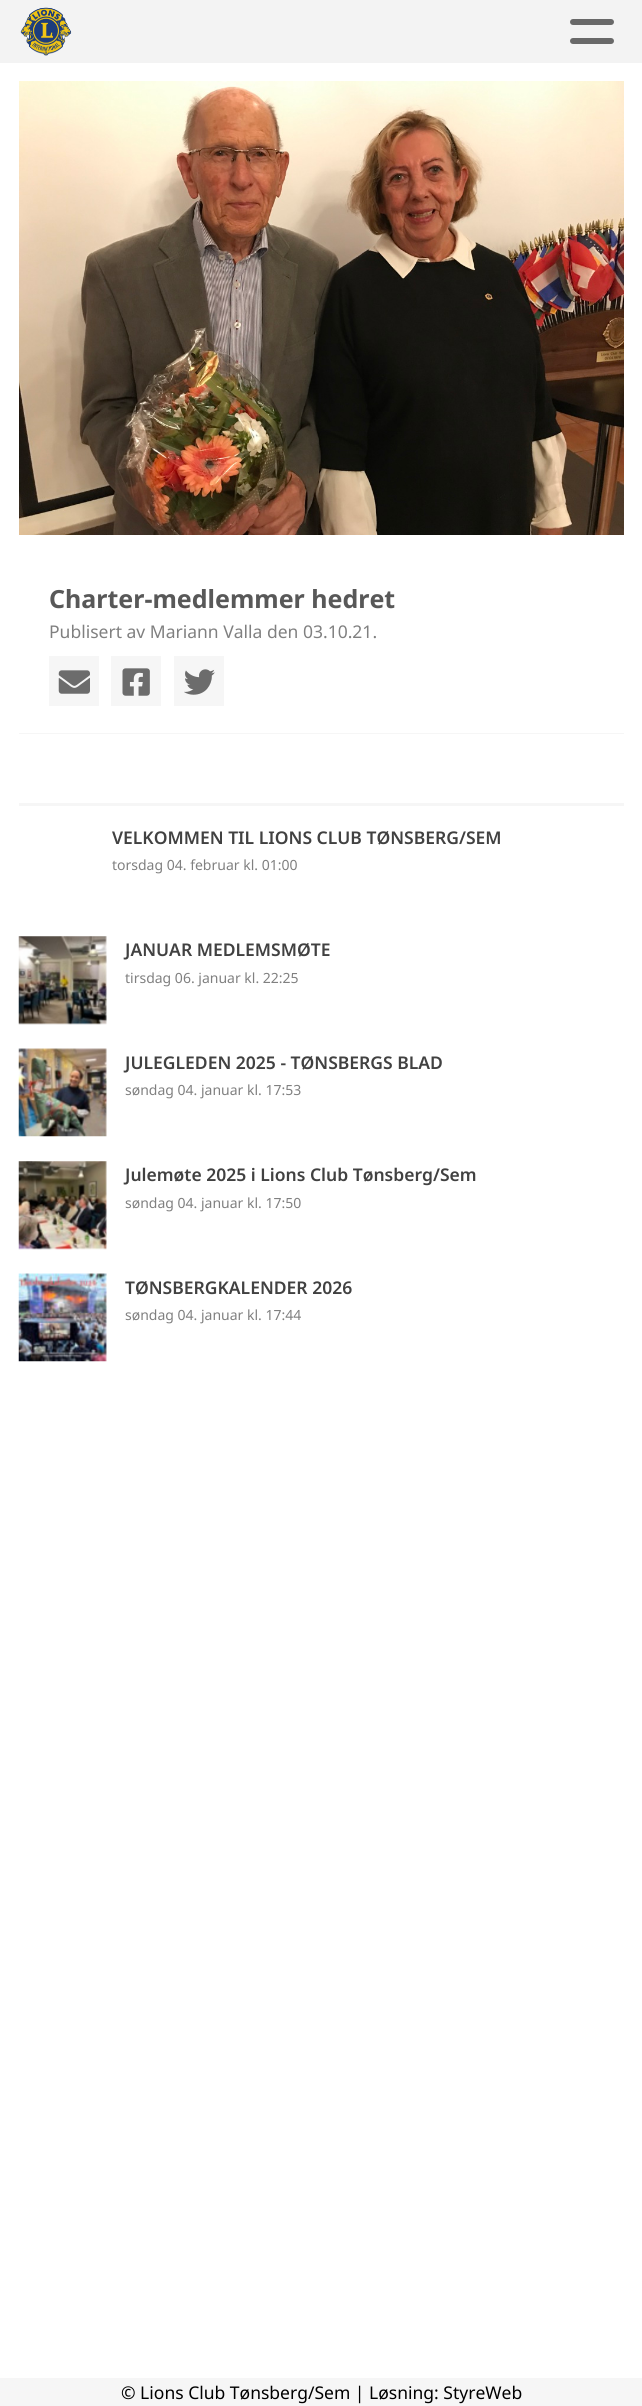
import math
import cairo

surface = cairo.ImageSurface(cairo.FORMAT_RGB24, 642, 2406)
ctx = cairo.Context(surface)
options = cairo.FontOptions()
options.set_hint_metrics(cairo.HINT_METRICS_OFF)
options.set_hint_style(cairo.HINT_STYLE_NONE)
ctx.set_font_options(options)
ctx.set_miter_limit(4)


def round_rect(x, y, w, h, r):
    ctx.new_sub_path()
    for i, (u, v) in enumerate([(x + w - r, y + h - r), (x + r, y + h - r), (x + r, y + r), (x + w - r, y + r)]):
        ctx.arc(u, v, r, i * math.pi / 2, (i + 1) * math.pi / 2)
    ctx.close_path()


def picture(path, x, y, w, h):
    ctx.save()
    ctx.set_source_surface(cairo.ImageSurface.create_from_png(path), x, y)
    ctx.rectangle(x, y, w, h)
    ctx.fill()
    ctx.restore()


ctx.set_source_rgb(1, 1, 1)
ctx.paint()
ctx.set_source_rgb(0.953, 0.953, 0.953)
ctx.rectangle(0, 0, 642, 63)
ctx.fill()
picture("img1.png", 20, 7, 52, 49)
ctx.set_source_rgb(0.412, 0.412, 0.412)
round_rect(570, 19, 44, 6, 3)
ctx.fill()
round_rect(570, 38, 44, 6, 3)
ctx.fill()
picture("img2.png", 19, 81, 605, 454)
ctx.set_source_rgb(0.961, 0.961, 0.961)
ctx.rectangle(19, 733, 605, 1)
ctx.fill()
ctx.select_font_face("Noto Sans", cairo.FONT_SLANT_NORMAL, cairo.FONT_WEIGHT_BOLD)
ctx.set_font_size(25)
ctx.set_source_rgb(0.345, 0.345, 0.345)
ctx.move_to(49, 608)
ctx.show_text("Charter-medlemmer hedret")
ctx.select_font_face("Noto Sans")
ctx.set_font_size(17.5)
ctx.set_source_rgb(0.502, 0.502, 0.502)
ctx.move_to(49, 638)
ctx.show_text("Publisert av Mariann Valla den 03.10.21.")
ctx.set_source_rgb(0.961, 0.961, 0.961)
ctx.rectangle(49, 656, 50, 50)
ctx.fill()
picture("img3.png", 58, 670, 32, 24)
ctx.rectangle(111, 656, 50, 50)
ctx.fill()
picture("img4.png", 122, 668, 28, 28)
ctx.rectangle(174, 656, 50, 50)
ctx.fill()
picture("img5.png", 184, 669, 31, 26)
ctx.rectangle(19, 803, 605, 3)
ctx.fill()
ctx.select_font_face("Noto Sans SemiBold")
ctx.set_source_rgb(0.255, 0.255, 0.255)
ctx.move_to(112, 844)
ctx.show_text("VELKOMMEN TIL LIONS CLUB TØNSBERG/SEM")
ctx.select_font_face("Noto Sans")
ctx.set_font_size(14)
ctx.set_source_rgb(0.502, 0.502, 0.502)
ctx.move_to(112, 870)
ctx.show_text("torsdag 04. februar kl. 01:00")
picture("img6.png", 18, 936, 89, 89)
ctx.select_font_face("Noto Sans SemiBold")
ctx.set_font_size(17.5)
ctx.set_source_rgb(0.255, 0.255, 0.255)
ctx.move_to(125, 956)
ctx.show_text("JANUAR MEDLEMSMØTE")
ctx.select_font_face("Noto Sans")
ctx.set_font_size(14)
ctx.set_source_rgb(0.502, 0.502, 0.502)
ctx.move_to(125, 983)
ctx.show_text("tirsdag 06. januar kl. 22:25")
picture("img7.png", 18, 1048, 89, 89)
ctx.select_font_face("Noto Sans SemiBold")
ctx.set_font_size(17.5)
ctx.set_source_rgb(0.255, 0.255, 0.255)
ctx.move_to(125, 1069)
ctx.show_text("JULEGLEDEN 2025 - TØNSBERGS BLAD")
ctx.select_font_face("Noto Sans")
ctx.set_font_size(14)
ctx.set_source_rgb(0.502, 0.502, 0.502)
ctx.move_to(125, 1095)
ctx.show_text("søndag 04. januar kl. 17:53")
picture("img8.png", 18, 1161, 89, 89)
ctx.select_font_face("Noto Sans SemiBold")
ctx.set_font_size(17.5)
ctx.set_source_rgb(0.255, 0.255, 0.255)
ctx.move_to(125, 1181)
ctx.show_text("Julemøte 2025 i Lions Club Tønsberg/Sem")
ctx.select_font_face("Noto Sans")
ctx.set_font_size(14)
ctx.set_source_rgb(0.502, 0.502, 0.502)
ctx.move_to(125, 1208)
ctx.show_text("søndag 04. januar kl. 17:50")
picture("img9.png", 18, 1273, 89, 89)
ctx.select_font_face("Noto Sans SemiBold")
ctx.set_font_size(17.5)
ctx.set_source_rgb(0.255, 0.255, 0.255)
ctx.move_to(125, 1294)
ctx.show_text("TØNSBERGKALENDER 2026")
ctx.select_font_face("Noto Sans")
ctx.set_font_size(14)
ctx.set_source_rgb(0.502, 0.502, 0.502)
ctx.move_to(125, 1320)
ctx.show_text("søndag 04. januar kl. 17:44")
ctx.set_source_rgb(0.961, 0.961, 0.961)
ctx.rectangle(0, 2378, 642, 28)
ctx.fill()
ctx.set_font_size(17.5)
ctx.set_source_rgb(0, 0, 0)
ctx.move_to(121, 2399)
ctx.show_text("© Lions Club Tønsberg/Sem | Løsning: StyreWeb")
surface.write_to_png("page.png")
